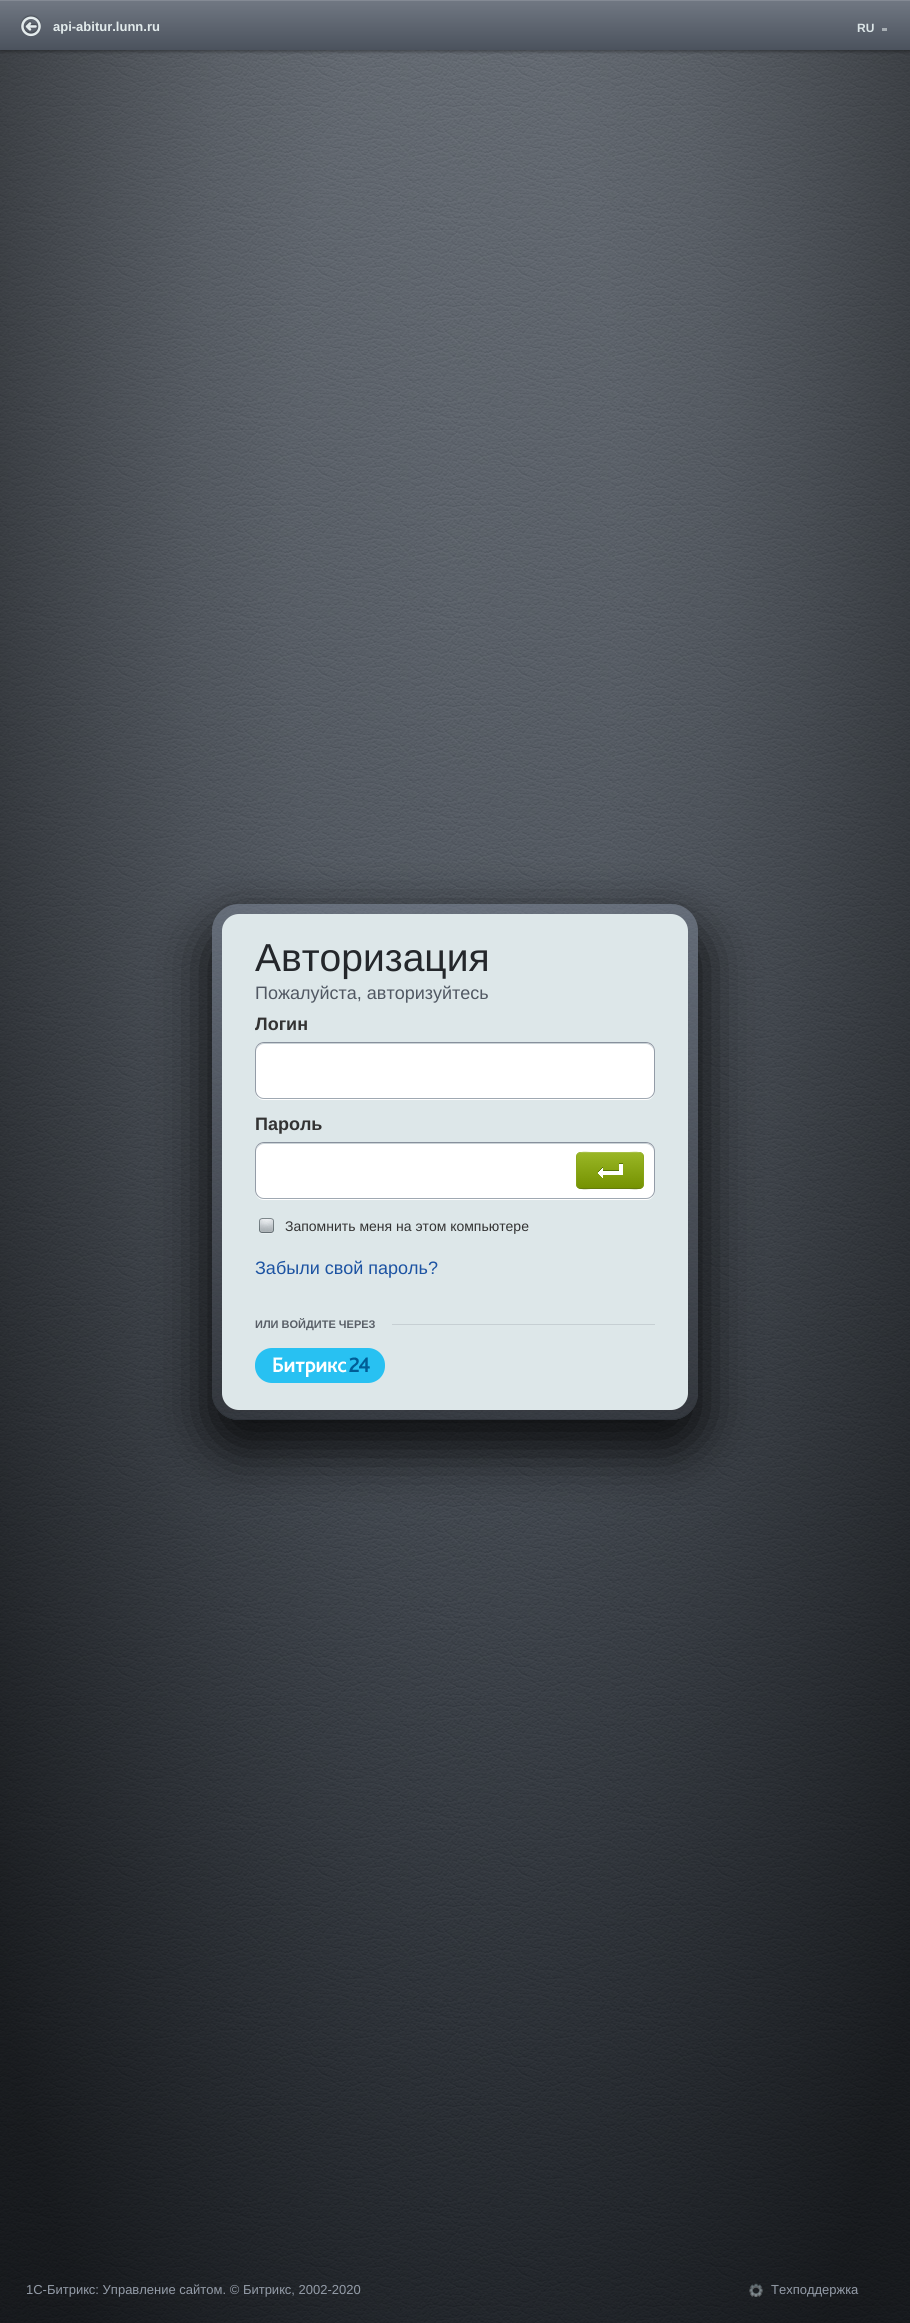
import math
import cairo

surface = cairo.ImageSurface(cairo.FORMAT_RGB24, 910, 2323)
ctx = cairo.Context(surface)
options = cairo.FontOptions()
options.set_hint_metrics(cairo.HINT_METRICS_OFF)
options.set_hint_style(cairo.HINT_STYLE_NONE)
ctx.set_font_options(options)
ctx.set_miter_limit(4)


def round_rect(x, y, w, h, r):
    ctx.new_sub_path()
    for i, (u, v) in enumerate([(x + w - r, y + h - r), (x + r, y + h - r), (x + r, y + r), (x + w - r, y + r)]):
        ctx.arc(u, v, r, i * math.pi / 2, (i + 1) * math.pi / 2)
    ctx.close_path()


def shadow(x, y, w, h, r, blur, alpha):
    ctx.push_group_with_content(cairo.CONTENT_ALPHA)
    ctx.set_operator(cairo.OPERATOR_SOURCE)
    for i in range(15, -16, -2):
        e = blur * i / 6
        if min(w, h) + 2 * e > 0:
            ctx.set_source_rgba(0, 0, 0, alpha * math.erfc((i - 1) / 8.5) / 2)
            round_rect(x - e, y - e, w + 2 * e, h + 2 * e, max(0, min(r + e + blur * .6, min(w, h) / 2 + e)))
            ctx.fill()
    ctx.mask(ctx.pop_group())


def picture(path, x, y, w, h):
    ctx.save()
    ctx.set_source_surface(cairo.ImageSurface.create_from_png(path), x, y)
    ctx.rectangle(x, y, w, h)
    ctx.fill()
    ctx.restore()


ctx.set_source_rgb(1, 1, 1)
ctx.paint()
picture("img1.png", 0, 50, 910, 2273)
ctx.set_source_rgb(0, 0, 0)
shadow(0, 2, 910, 50, 0, 1.5, 0.32)
gradient = cairo.LinearGradient(455, 0, 455, 50)
gradient.add_color_stop_rgba(0, 0.443, 0.471, 0.514, 1)
gradient.add_color_stop_rgba(1, 0.294, 0.322, 0.365, 1)
ctx.set_source(gradient)
ctx.rectangle(0, 1, 910, 49)
ctx.fill()
ctx.set_source_rgb(0.518, 0.541, 0.58)
ctx.rectangle(0, 0, 910, 1)
ctx.fill()
picture("img2.png", 20, 14, 21, 23)
ctx.select_font_face("Liberation Sans", cairo.FONT_SLANT_NORMAL, cairo.FONT_WEIGHT_BOLD)
ctx.set_font_size(13)
ctx.set_source_rgb(0.886, 0.918, 0.922)
ctx.move_to(53, 31)
ctx.show_text("api-abitur.lunn.ru")
ctx.set_font_size(12)
ctx.set_source_rgb(0.859, 0.898, 0.906)
ctx.move_to(857, 32)
ctx.show_text("RU")
ctx.set_source_rgb(0.659, 0.686, 0.706)
ctx.rectangle(882, 28, 5, 3)
ctx.fill()
ctx.save()
ctx.set_fill_rule(cairo.FILL_RULE_EVEN_ODD)
ctx.new_path()
ctx.move_to(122, 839)
ctx.line_to(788, 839)
ctx.line_to(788, 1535)
ctx.line_to(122, 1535)
ctx.close_path()
ctx.move_to(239, 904)
ctx.line_to(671, 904)
ctx.curve_to(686, 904, 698, 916, 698, 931)
ctx.line_to(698, 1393)
ctx.curve_to(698, 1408, 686, 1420, 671, 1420)
ctx.line_to(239, 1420)
ctx.curve_to(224, 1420, 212, 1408, 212, 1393)
ctx.line_to(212, 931)
ctx.curve_to(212, 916, 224, 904, 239, 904)
ctx.close_path()
ctx.clip()
ctx.set_source_rgb(0, 0, 0)
shadow(203, 920, 504, 534, 36, 26.5, 0.77)
ctx.restore()
gradient = cairo.LinearGradient(455, 904, 455, 1420)
gradient.add_color_stop_rgba(0, 0.486, 0.525, 0.588, 0.52)
gradient.add_color_stop_rgba(1, 0.165, 0.176, 0.2, 0.52)
ctx.set_source(gradient)
round_rect(212, 904, 486, 516, 27)
ctx.fill()
ctx.set_source_rgb(0.176, 0.196, 0.22)
ctx.new_path()
ctx.move_to(212, 1392)
ctx.line_to(212, 1393)
ctx.curve_to(212, 1408, 224, 1420, 239, 1420)
ctx.line_to(671, 1420)
ctx.curve_to(686, 1420, 698, 1408, 698, 1393)
ctx.line_to(698, 1392)
ctx.curve_to(698, 1407, 686, 1419, 671, 1419)
ctx.line_to(239, 1419)
ctx.curve_to(224, 1419, 212, 1407, 212, 1392)
ctx.close_path()
ctx.fill()
ctx.set_source_rgb(0.867, 0.906, 0.914)
round_rect(222, 914, 466, 496, 17)
ctx.fill()
ctx.select_font_face("Liberation Sans")
ctx.set_font_size(39)
ctx.set_source_rgb(0.141, 0.153, 0.169)
ctx.move_to(255, 971)
ctx.show_text("Авторизация")
ctx.set_font_size(18)
ctx.set_source_rgb(0.318, 0.345, 0.388)
ctx.move_to(255, 999)
ctx.show_text("Пожалуйста, авторизуйтесь")
ctx.select_font_face("Liberation Sans", cairo.FONT_SLANT_NORMAL, cairo.FONT_WEIGHT_BOLD)
ctx.set_source_rgb(0.2, 0.2, 0.2)
ctx.move_to(255, 1030)
ctx.show_text("Логин")
ctx.set_source_rgb(1, 1, 1)
ctx.new_path()
ctx.move_to(255, 1090)
ctx.curve_to(255, 1095, 258, 1100, 264, 1100)
ctx.line_to(646, 1100)
ctx.curve_to(652, 1100, 655, 1095, 655, 1090)
ctx.curve_to(655, 1095, 651, 1099, 646, 1099)
ctx.line_to(264, 1099)
ctx.curve_to(259, 1099, 255, 1095, 255, 1090)
ctx.close_path()
ctx.fill()
round_rect(255, 1042, 400, 57, 9)
ctx.fill()
ctx.set_source_rgb(0.796, 0.827, 0.843)
ctx.new_path()
ctx.move_to(264, 1044)
ctx.line_to(646, 1044)
ctx.curve_to(650, 1044, 654, 1048, 654, 1052)
ctx.line_to(654, 1051)
ctx.curve_to(654, 1047, 650, 1043, 646, 1043)
ctx.line_to(264, 1043)
ctx.curve_to(260, 1043, 256, 1047, 256, 1051)
ctx.line_to(256, 1052)
ctx.curve_to(256, 1048, 260, 1044, 264, 1044)
ctx.close_path()
ctx.fill()
ctx.new_path()
ctx.move_to(258, 1045)
ctx.curve_to(259.5, 1043.5, 261.5, 1042.5, 264, 1042.5)
ctx.line_to(646, 1042.5)
ctx.curve_to(648.5, 1042.5, 650.5, 1043.5, 652, 1045)
ctx.set_source_rgb(0.529, 0.565, 0.612)
ctx.set_line_width(1)
ctx.stroke()
ctx.new_path()
ctx.move_to(652, 1045)
ctx.curve_to(653.5, 1046.5, 654.5, 1048.5, 654.5, 1051)
ctx.line_to(654.5, 1090)
ctx.curve_to(654.5, 1092.5, 653.5, 1094.5, 652, 1096)
ctx.set_source_rgb(0.576, 0.612, 0.655)
ctx.stroke()
ctx.new_path()
ctx.move_to(652, 1096)
ctx.curve_to(650.5, 1097.5, 648.5, 1098.5, 646, 1098.5)
ctx.line_to(264, 1098.5)
ctx.curve_to(261.5, 1098.5, 259.5, 1097.5, 258, 1096)
ctx.set_source_rgb(0.624, 0.659, 0.698)
ctx.stroke()
ctx.new_path()
ctx.move_to(258, 1096)
ctx.curve_to(256.5, 1094.5, 255.5, 1092.5, 255.5, 1090)
ctx.line_to(255.5, 1051)
ctx.curve_to(255.5, 1048.5, 256.5, 1046.5, 258, 1045)
ctx.set_source_rgb(0.576, 0.612, 0.655)
ctx.stroke()
ctx.set_source_rgb(0.2, 0.2, 0.2)
ctx.move_to(255, 1130)
ctx.show_text("Пароль")
ctx.set_source_rgb(1, 1, 1)
ctx.new_path()
ctx.move_to(255, 1190)
ctx.curve_to(255, 1195, 258, 1200, 264, 1200)
ctx.line_to(646, 1200)
ctx.curve_to(652, 1200, 655, 1195, 655, 1190)
ctx.curve_to(655, 1195, 651, 1199, 646, 1199)
ctx.line_to(264, 1199)
ctx.curve_to(259, 1199, 255, 1195, 255, 1190)
ctx.close_path()
ctx.fill()
round_rect(255, 1142, 400, 57, 9)
ctx.fill()
ctx.set_source_rgb(0.796, 0.827, 0.843)
ctx.new_path()
ctx.move_to(264, 1144)
ctx.line_to(646, 1144)
ctx.curve_to(650, 1144, 654, 1148, 654, 1152)
ctx.line_to(654, 1151)
ctx.curve_to(654, 1147, 650, 1143, 646, 1143)
ctx.line_to(264, 1143)
ctx.curve_to(260, 1143, 256, 1147, 256, 1151)
ctx.line_to(256, 1152)
ctx.curve_to(256, 1148, 260, 1144, 264, 1144)
ctx.close_path()
ctx.fill()
ctx.new_path()
ctx.move_to(258, 1145)
ctx.curve_to(259.5, 1143.5, 261.5, 1142.5, 264, 1142.5)
ctx.line_to(646, 1142.5)
ctx.curve_to(648.5, 1142.5, 650.5, 1143.5, 652, 1145)
ctx.set_source_rgb(0.529, 0.565, 0.612)
ctx.stroke()
ctx.new_path()
ctx.move_to(652, 1145)
ctx.curve_to(653.5, 1146.5, 654.5, 1148.5, 654.5, 1151)
ctx.line_to(654.5, 1190)
ctx.curve_to(654.5, 1192.5, 653.5, 1194.5, 652, 1196)
ctx.set_source_rgb(0.576, 0.612, 0.655)
ctx.stroke()
ctx.new_path()
ctx.move_to(652, 1196)
ctx.curve_to(650.5, 1197.5, 648.5, 1198.5, 646, 1198.5)
ctx.line_to(264, 1198.5)
ctx.curve_to(261.5, 1198.5, 259.5, 1197.5, 258, 1196)
ctx.set_source_rgb(0.624, 0.659, 0.698)
ctx.stroke()
ctx.new_path()
ctx.move_to(258, 1196)
ctx.curve_to(256.5, 1194.5, 255.5, 1192.5, 255.5, 1190)
ctx.line_to(255.5, 1151)
ctx.curve_to(255.5, 1148.5, 256.5, 1146.5, 258, 1145)
ctx.set_source_rgb(0.576, 0.612, 0.655)
ctx.stroke()
ctx.set_source_rgb(0.533, 0.667, 0)
round_rect(576, 1152, 68, 37, 5)
ctx.fill()
picture("img3.png", 576, 1152, 68, 37)
round_rect(576.5, 1152.5, 67, 36, 4.5)
ctx.set_source_rgba(0.541, 0.651, 0.098, 0.7)
ctx.stroke()
ctx.set_source_rgb(0.396, 0.486, 0.047)
ctx.new_path()
ctx.move_to(576, 1183)
ctx.curve_to(576, 1191, 585, 1189, 591, 1189)
ctx.line_to(629, 1189)
ctx.curve_to(635, 1189, 644, 1191, 644, 1183)
ctx.curve_to(644, 1186, 642, 1188, 639, 1188)
ctx.line_to(581, 1188)
ctx.curve_to(578, 1188, 576, 1186, 576, 1183)
ctx.close_path()
ctx.fill()
ctx.set_source_rgb(0.651, 0.749, 0.271)
ctx.new_path()
ctx.move_to(581, 1153)
ctx.line_to(639, 1153)
ctx.curve_to(642, 1153, 644, 1155, 644, 1158)
ctx.curve_to(644, 1150, 635, 1152, 629, 1152)
ctx.line_to(591, 1152)
ctx.curve_to(585, 1152, 576, 1150, 576, 1158)
ctx.curve_to(576, 1155, 578, 1153, 581, 1153)
ctx.close_path()
ctx.fill()
picture("img4.png", 259, 1218, 15, 16)
ctx.select_font_face("Liberation Sans")
ctx.set_font_size(14)
ctx.set_source_rgb(0.2, 0.2, 0.2)
ctx.move_to(285, 1231)
ctx.show_text("Запомнить меня на этом компьютере")
ctx.set_font_size(18)
ctx.set_source_rgb(0.11, 0.325, 0.635)
ctx.move_to(255, 1274)
ctx.show_text("Забыли свой пароль?")
ctx.set_source_rgb(0.776, 0.812, 0.827)
ctx.rectangle(392, 1324, 263, 1)
ctx.fill()
ctx.select_font_face("Liberation Sans", cairo.FONT_SLANT_NORMAL, cairo.FONT_WEIGHT_BOLD)
ctx.set_font_size(11)
ctx.set_source_rgb(0.349, 0.373, 0.404)
ctx.move_to(255, 1328)
ctx.show_text("ИЛИ ВОЙДИТЕ ЧЕРЕЗ")
ctx.set_source_rgb(0.157, 0.757, 0.949)
round_rect(255, 1348, 130, 35, 17)
ctx.fill()
picture("img5.png", 273, 1357, 97, 20)
ctx.select_font_face("Liberation Sans")
ctx.set_font_size(13)
ctx.set_source_rgb(0.58, 0.612, 0.659)
ctx.move_to(26, 2294)
ctx.show_text("1С-Битрикс: Управление сайтом. © Битрикс, 2002-2020")
picture("img6.png", 749, 2283, 14, 14)
ctx.move_to(771, 2294)
ctx.show_text("Техподдержка")
surface.write_to_png("page.png")
